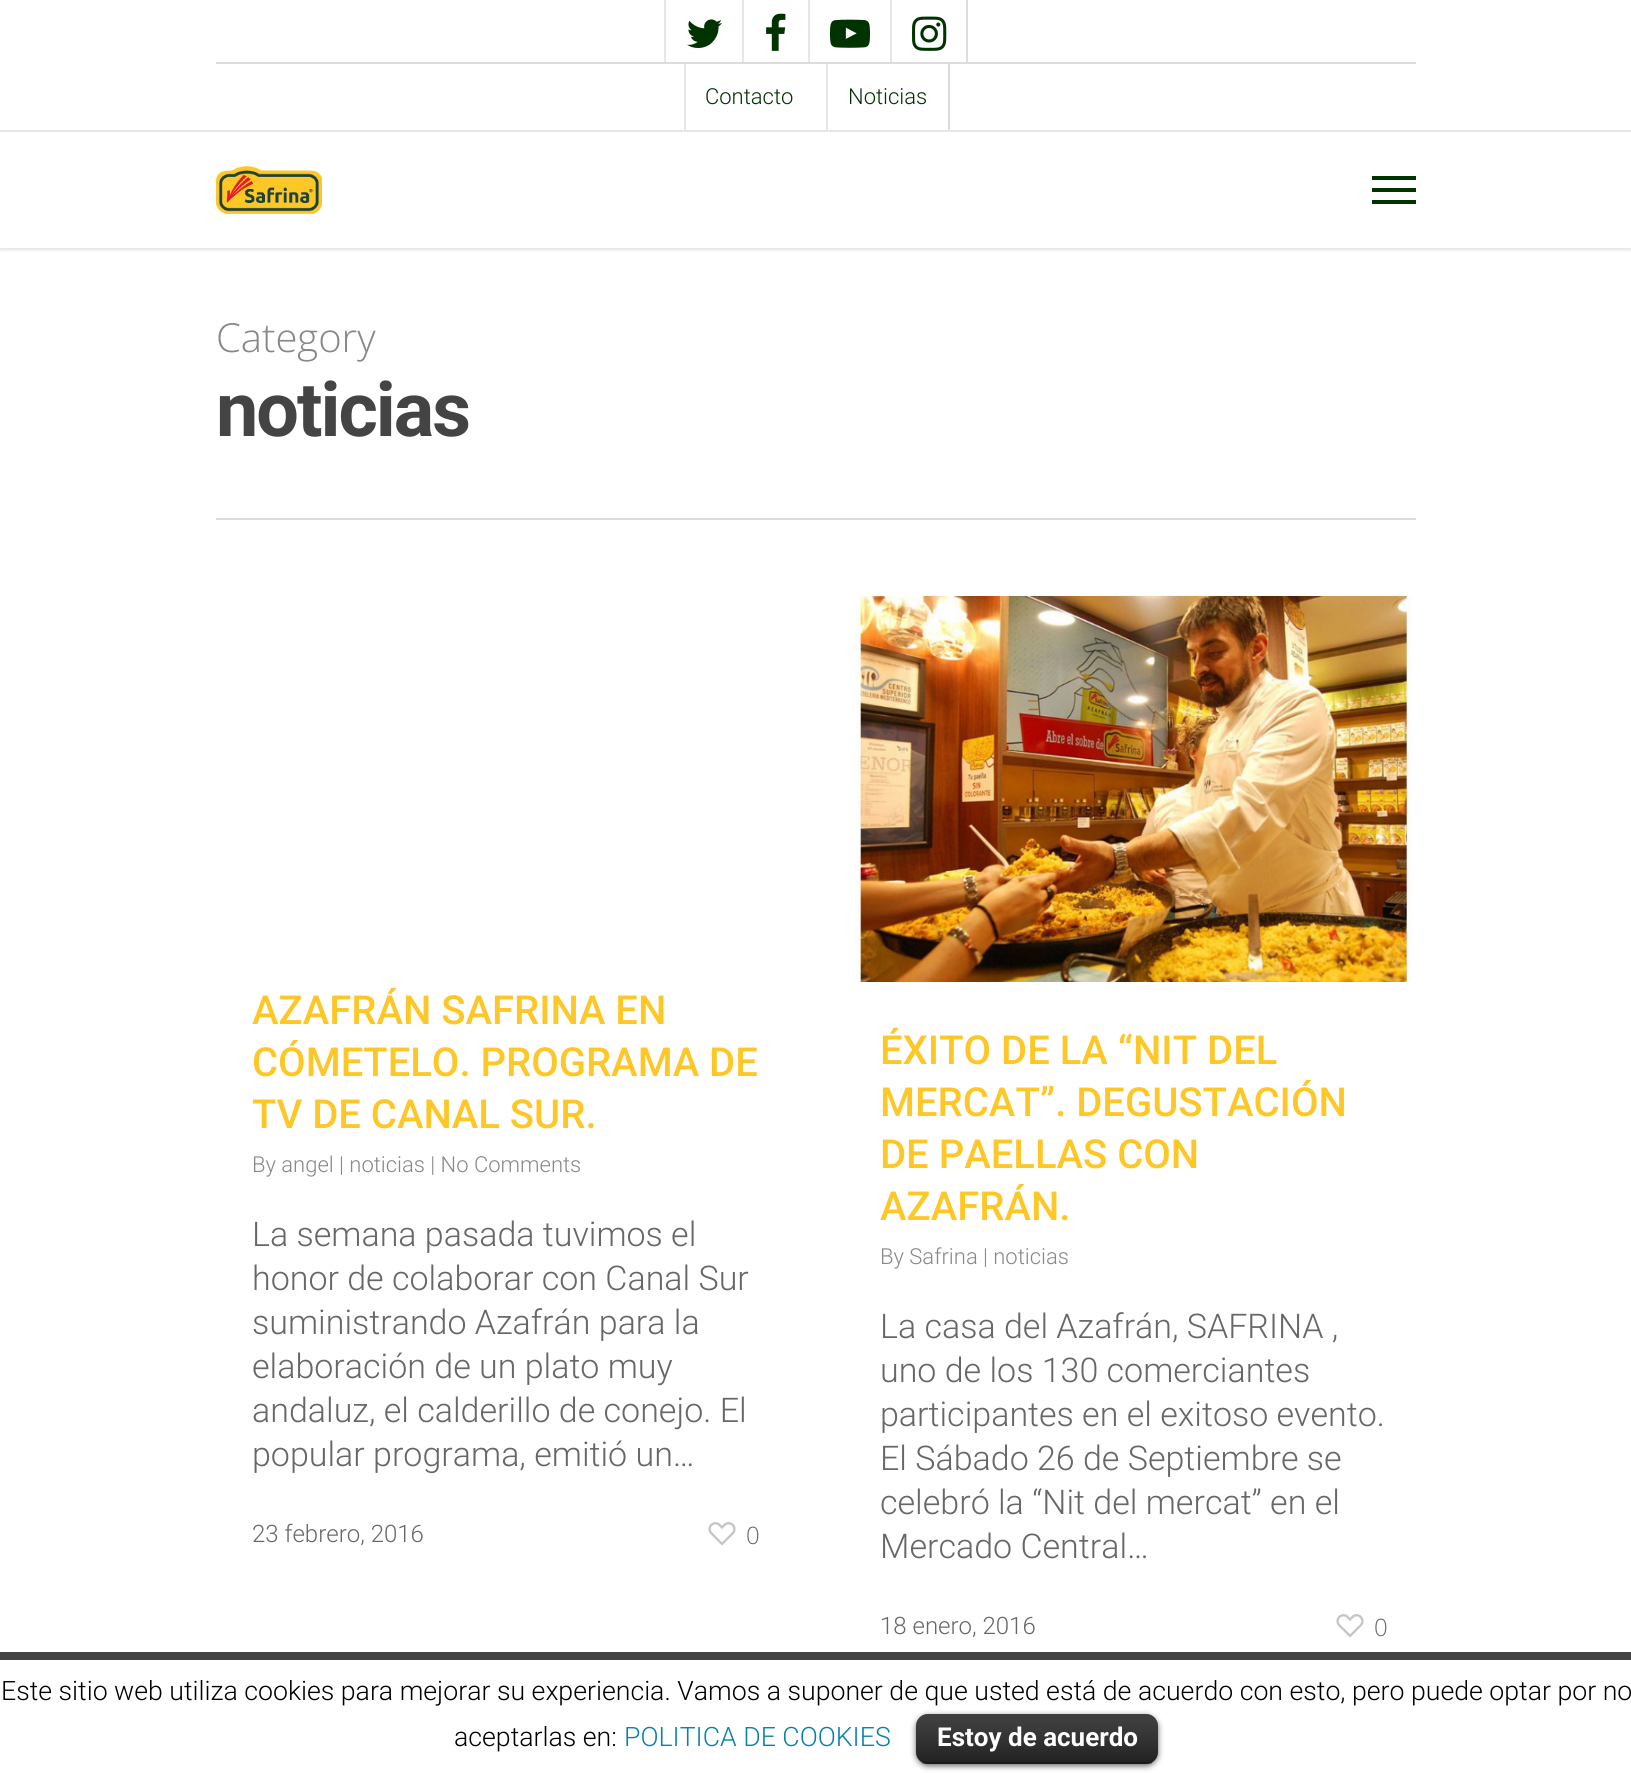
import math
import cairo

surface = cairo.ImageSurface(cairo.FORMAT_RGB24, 1631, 1773)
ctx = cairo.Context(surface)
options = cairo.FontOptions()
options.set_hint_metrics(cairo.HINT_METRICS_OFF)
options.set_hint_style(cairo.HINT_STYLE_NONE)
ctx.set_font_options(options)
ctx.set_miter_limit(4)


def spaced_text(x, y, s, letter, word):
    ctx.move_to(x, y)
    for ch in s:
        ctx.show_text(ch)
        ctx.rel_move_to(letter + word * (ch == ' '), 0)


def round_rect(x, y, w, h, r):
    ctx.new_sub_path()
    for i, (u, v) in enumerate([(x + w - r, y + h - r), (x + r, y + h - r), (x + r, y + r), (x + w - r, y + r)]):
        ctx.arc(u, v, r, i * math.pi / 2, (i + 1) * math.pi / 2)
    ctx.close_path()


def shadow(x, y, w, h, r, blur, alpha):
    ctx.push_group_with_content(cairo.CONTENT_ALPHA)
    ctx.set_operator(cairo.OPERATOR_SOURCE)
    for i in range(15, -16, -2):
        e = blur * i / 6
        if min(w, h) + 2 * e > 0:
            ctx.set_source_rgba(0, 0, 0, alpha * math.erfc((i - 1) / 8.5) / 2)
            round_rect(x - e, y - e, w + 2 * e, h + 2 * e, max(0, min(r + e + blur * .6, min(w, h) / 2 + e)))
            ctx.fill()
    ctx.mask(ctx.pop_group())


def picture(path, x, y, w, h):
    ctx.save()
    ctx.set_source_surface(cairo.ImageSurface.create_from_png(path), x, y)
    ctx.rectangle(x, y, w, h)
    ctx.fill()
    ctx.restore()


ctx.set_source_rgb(1, 1, 1)
ctx.paint()
ctx.save()
ctx.rectangle(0, 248, 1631, 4)
ctx.clip()
ctx.set_source_rgb(0, 0, 0)
shadow(0, 132, 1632, 116, 0, 3, 0.22)
ctx.restore()
ctx.set_source_rgb(1, 1, 1)
ctx.rectangle(0, 127, 1631, 3)
ctx.fill()
ctx.set_source_rgb(0.902, 0.902, 0.902)
ctx.rectangle(0, 130, 1631, 2)
ctx.fill()
ctx.rectangle(664, 0, 2, 62)
ctx.fill()
picture("img1.png", 687, 19, 35, 29)
ctx.rectangle(742, 0, 2, 62)
ctx.fill()
picture("img2.png", 766, 13, 20, 38)
ctx.rectangle(808, 0, 2, 62)
ctx.fill()
picture("img3.png", 830, 19, 40, 29)
ctx.set_source_rgb(0.867, 0.867, 0.867)
ctx.rectangle(966, 0, 2, 62)
ctx.fill()
ctx.set_source_rgb(0.902, 0.902, 0.902)
ctx.rectangle(890, 0, 2, 62)
ctx.fill()
picture("img4.png", 912, 16, 35, 35)
ctx.set_source_rgb(0.867, 0.867, 0.867)
ctx.rectangle(216, 62, 1200, 2)
ctx.fill()
ctx.set_source_rgb(0.902, 0.902, 0.902)
ctx.rectangle(684, 64, 2, 66)
ctx.fill()
ctx.select_font_face("Roboto Light")
ctx.set_font_size(22)
ctx.set_source_rgb(0, 0.2, 0)
ctx.move_to(705, 104)
ctx.show_text("Contacto")
ctx.set_source_rgb(0.867, 0.867, 0.867)
ctx.rectangle(948, 64, 2, 66)
ctx.fill()
ctx.set_source_rgb(0.902, 0.902, 0.902)
ctx.rectangle(826, 64, 2, 66)
ctx.fill()
ctx.set_source_rgb(0, 0.2, 0)
ctx.move_to(848, 104)
ctx.show_text("Noticias")
picture("img5.png", 216, 166, 106, 48)
ctx.rectangle(1372, 176, 44, 4)
ctx.fill()
ctx.rectangle(1372, 200, 44, 4)
ctx.fill()
ctx.rectangle(1372, 188, 44, 4)
ctx.fill()
ctx.set_source_rgb(0.867, 0.867, 0.867)
ctx.rectangle(216, 518, 1200, 2)
ctx.fill()
ctx.select_font_face("Open Sans Light")
ctx.set_font_size(40)
ctx.set_source_rgb(0.533, 0.533, 0.533)
ctx.move_to(216, 352)
ctx.show_text("Category")
ctx.select_font_face("Roboto", cairo.FONT_SLANT_NORMAL, cairo.FONT_WEIGHT_BOLD)
ctx.set_font_size(75.5)
ctx.set_source_rgb(0.267, 0.267, 0.267)
spaced_text(216, 436, "noticias", -2, 0)
ctx.select_font_face("Roboto Medium")
ctx.set_font_size(40)
ctx.set_source_rgb(0.996, 0.78, 0.157)
ctx.move_to(252, 1024)
ctx.show_text("AZAFRÁN SAFRINA EN")
ctx.move_to(252, 1076)
ctx.show_text("CÓMETELO. PROGRAMA DE")
ctx.move_to(252, 1128)
ctx.show_text("TV DE CANAL SUR.")
ctx.select_font_face("Roboto Light")
ctx.set_font_size(22)
ctx.set_source_rgb(0.533, 0.533, 0.533)
ctx.move_to(252, 1172)
ctx.show_text("By angel | noticias | No Comments")
ctx.set_font_size(34)
ctx.set_source_rgb(0.404, 0.404, 0.404)
ctx.move_to(252, 1246)
ctx.show_text("La semana pasada tuvimos el")
ctx.move_to(252, 1290)
ctx.show_text("honor de colaborar con Canal Sur")
ctx.move_to(252, 1334)
ctx.show_text("suministrando Azafrán para la")
ctx.move_to(252, 1378)
ctx.show_text("elaboración de un plato muy")
ctx.move_to(252, 1422)
ctx.show_text("andaluz, el calderillo de conejo. El")
ctx.move_to(252, 1466)
ctx.show_text("popular programa, emitió un…")
ctx.set_font_size(24)
ctx.move_to(252, 1542)
ctx.show_text("23 febrero, 2016")
picture("img6.png", 708, 1522, 28, 24)
ctx.select_font_face("Open Sans Light")
ctx.move_to(746, 1544)
ctx.show_text("0")
picture("img7.png", 855, 596, 557, 386)
ctx.select_font_face("Roboto Medium")
ctx.set_font_size(40)
ctx.set_source_rgb(0.996, 0.78, 0.157)
ctx.move_to(880, 1064)
ctx.show_text("ÉXITO DE LA “NIT DEL")
ctx.move_to(880, 1116)
ctx.show_text("MERCAT”. DEGUSTACIÓN")
ctx.move_to(880, 1168)
ctx.show_text("DE PAELLAS CON")
ctx.move_to(880, 1220)
ctx.show_text("AZAFRÁN.")
ctx.select_font_face("Roboto Light")
ctx.set_font_size(22)
ctx.set_source_rgb(0.533, 0.533, 0.533)
ctx.move_to(880, 1264)
ctx.show_text("By Safrina | noticias")
ctx.set_font_size(34)
ctx.set_source_rgb(0.404, 0.404, 0.404)
ctx.move_to(880, 1338)
ctx.show_text("La casa del Azafrán, SAFRINA ,")
ctx.move_to(880, 1382)
ctx.show_text("uno de los 130 comerciantes")
ctx.move_to(880, 1426)
ctx.show_text("participantes en el exitoso evento.")
ctx.move_to(880, 1470)
ctx.show_text("El Sábado 26 de Septiembre se")
ctx.move_to(880, 1514)
ctx.show_text("celebró la “Nit del mercat” en el")
ctx.move_to(880, 1558)
ctx.show_text("Mercado Central…")
ctx.set_font_size(24)
ctx.move_to(880, 1634)
ctx.show_text("18 enero, 2016")
picture("img6.png", 1336, 1614, 28, 24)
ctx.select_font_face("Open Sans Light")
ctx.move_to(1374, 1636)
ctx.show_text("0")
ctx.set_source_rgb(0.267, 0.267, 0.267)
ctx.rectangle(0, 1652, 1631, 8)
ctx.fill()
ctx.select_font_face("Roboto Light")
ctx.set_font_size(26.67)
ctx.set_source_rgb(0, 0, 0)
ctx.move_to(1, 1700)
ctx.show_text("Este sitio web utiliza cookies para mejorar su experiencia. Vamos a suponer de que usted está de acuerdo con esto, pero puede optar por no")
ctx.move_to(454, 1746)
ctx.show_text("aceptarlas en:")
ctx.set_source_rgb(0.031, 0.506, 0.647)
ctx.move_to(624, 1746)
ctx.show_text("POLITICA DE COOKIES")
ctx.set_source_rgb(0, 0, 0)
shadow(916, 1716, 242, 50, 12, 3, 0.6)
ctx.set_source_rgb(0, 0, 0)
round_rect(916, 1714, 242, 50, 12)
ctx.fill()
picture("img8.png", 916, 1714, 242, 50)
ctx.set_source_rgba(0, 0, 0, 0.25)
ctx.rectangle(922, 1762, 230, 2)
ctx.fill()
ctx.select_font_face("Roboto", cairo.FONT_SLANT_NORMAL, cairo.FONT_WEIGHT_BOLD)
ctx.set_font_size(26)
ctx.set_source_rgb(1, 1, 1)
ctx.move_to(937, 1746)
ctx.show_text("Estoy de acuerdo")
surface.write_to_png("page.png")
